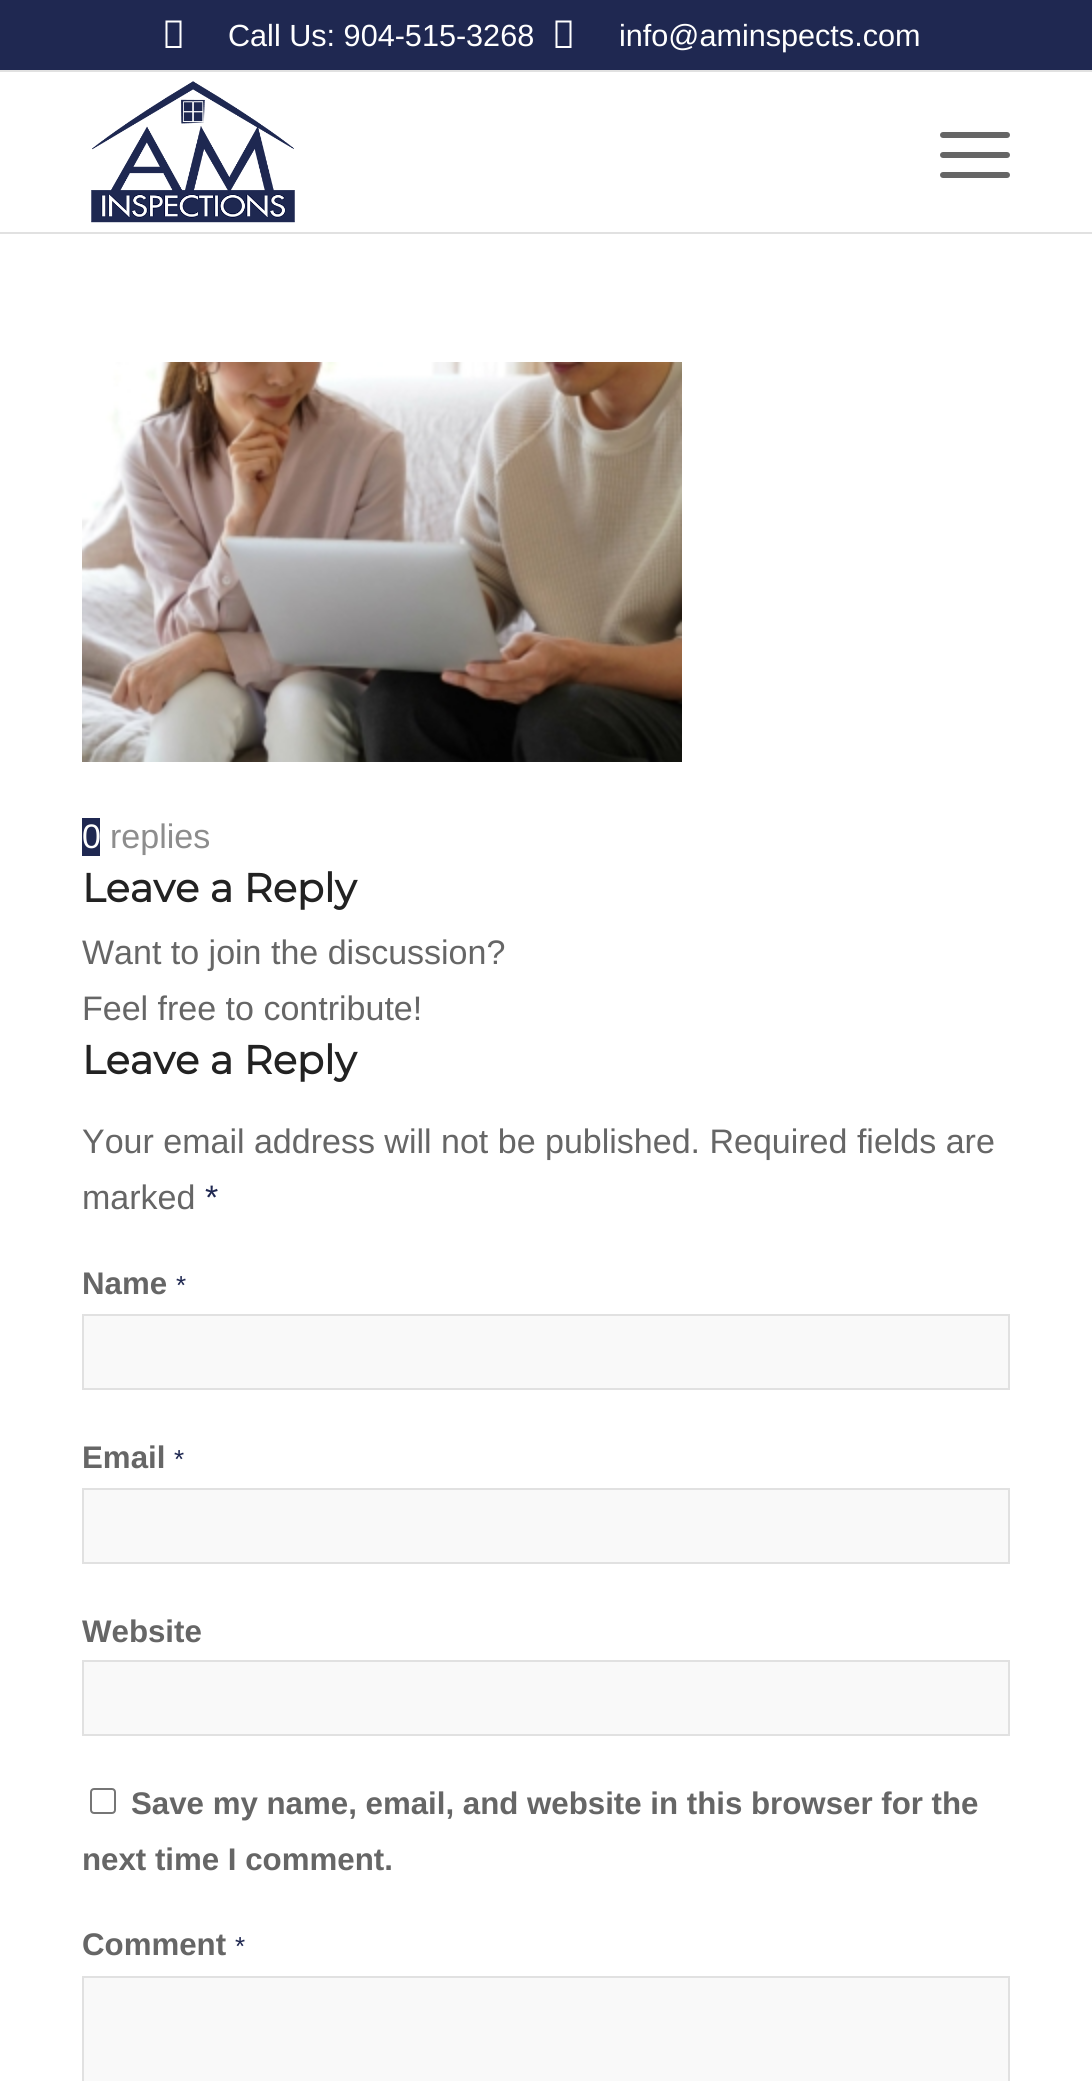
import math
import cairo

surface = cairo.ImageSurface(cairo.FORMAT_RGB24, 1092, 2081)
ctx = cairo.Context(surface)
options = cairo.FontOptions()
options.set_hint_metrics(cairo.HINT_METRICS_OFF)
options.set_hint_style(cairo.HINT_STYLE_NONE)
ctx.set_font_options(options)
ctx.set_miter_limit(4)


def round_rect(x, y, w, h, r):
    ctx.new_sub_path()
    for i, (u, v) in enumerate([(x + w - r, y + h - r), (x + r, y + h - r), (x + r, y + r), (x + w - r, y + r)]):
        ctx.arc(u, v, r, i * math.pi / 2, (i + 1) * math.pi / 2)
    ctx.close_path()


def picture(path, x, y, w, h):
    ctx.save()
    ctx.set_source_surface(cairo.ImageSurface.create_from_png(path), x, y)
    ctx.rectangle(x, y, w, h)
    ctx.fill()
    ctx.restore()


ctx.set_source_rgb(1, 1, 1)
ctx.paint()
ctx.set_source_rgb(0.122, 0.157, 0.318)
ctx.rectangle(0, 0, 1092, 70)
ctx.fill()
ctx.set_source_rgb(0.882, 0.882, 0.882)
ctx.rectangle(0, 70, 1092, 2)
ctx.fill()
ctx.set_source_rgb(1, 1, 1)
ctx.new_path()
ctx.move_to(165.5, 48)
ctx.line_to(165.5, 20.5)
ctx.line_to(181.5, 20.5)
ctx.line_to(181.5, 48)
ctx.close_path()
ctx.move_to(167.5, 46)
ctx.line_to(179.5, 46)
ctx.line_to(179.5, 22.5)
ctx.line_to(167.5, 22.5)
ctx.close_path()
ctx.fill()
ctx.select_font_face("Arimo")
ctx.set_font_size(30.6)
ctx.move_to(228, 46)
ctx.show_text("Call Us: 904-515-3268")
ctx.new_path()
ctx.move_to(555.5, 48)
ctx.line_to(555.5, 20.5)
ctx.line_to(571.5, 20.5)
ctx.line_to(571.5, 48)
ctx.close_path()
ctx.move_to(557.5, 46)
ctx.line_to(569.5, 46)
ctx.line_to(569.5, 22.5)
ctx.line_to(557.5, 22.5)
ctx.close_path()
ctx.fill()
ctx.move_to(619, 46)
ctx.show_text("info@aminspects.com")
ctx.set_source_rgb(0.882, 0.882, 0.882)
ctx.rectangle(0, 232, 1092, 2)
ctx.fill()
picture("img1.png", 91, 81, 204, 142)
ctx.set_source_rgb(0.4, 0.4, 0.4)
round_rect(940, 152, 70, 6, 3)
ctx.fill()
round_rect(940, 132, 70, 6, 3)
ctx.fill()
round_rect(940, 172, 70, 6, 3)
ctx.fill()
picture("img2.png", 82, 362, 600, 400)
ctx.set_source_rgb(0.122, 0.157, 0.318)
ctx.rectangle(82, 818, 18, 38)
ctx.fill()
ctx.set_font_size(34)
ctx.set_source_rgb(1, 1, 1)
ctx.move_to(82, 848)
ctx.show_text("0")
ctx.set_source_rgb(0.553, 0.553, 0.553)
ctx.move_to(110, 848)
ctx.show_text("replies")
ctx.select_font_face("Montserrat", cairo.FONT_SLANT_NORMAL, cairo.FONT_WEIGHT_BOLD)
ctx.set_font_size(40)
ctx.set_source_rgb(0.133, 0.133, 0.133)
ctx.move_to(82, 902)
ctx.show_text("Leave a Reply")
ctx.select_font_face("Arimo")
ctx.set_font_size(34)
ctx.set_source_rgb(0.4, 0.4, 0.4)
ctx.move_to(82, 964)
ctx.show_text("Want to join the discussion?")
ctx.move_to(82, 1020)
ctx.show_text("Feel free to contribute!")
ctx.select_font_face("Montserrat", cairo.FONT_SLANT_NORMAL, cairo.FONT_WEIGHT_BOLD)
ctx.set_font_size(40)
ctx.set_source_rgb(0.133, 0.133, 0.133)
ctx.move_to(82, 1074)
ctx.show_text("Leave a Reply")
ctx.select_font_face("Arimo")
ctx.set_font_size(34)
ctx.set_source_rgb(0.4, 0.4, 0.4)
ctx.move_to(82, 1153)
ctx.show_text("Your email address will not be published. Required fields are")
ctx.move_to(82, 1209)
ctx.show_text("marked")
ctx.set_source_rgb(0.122, 0.157, 0.318)
ctx.move_to(205, 1209)
ctx.show_text("*")
ctx.select_font_face("Arimo", cairo.FONT_SLANT_NORMAL, cairo.FONT_WEIGHT_BOLD)
ctx.set_font_size(31.25)
ctx.set_source_rgb(0.4, 0.4, 0.4)
ctx.move_to(82, 1294)
ctx.show_text("Name")
ctx.select_font_face("Arimo")
ctx.set_font_size(26)
ctx.set_source_rgb(0.122, 0.157, 0.318)
ctx.move_to(176, 1294)
ctx.show_text("*")
ctx.set_source_rgb(0.973, 0.973, 0.973)
ctx.rectangle(83, 1315, 926, 74)
ctx.fill_preserve()
ctx.set_source_rgb(0.882, 0.882, 0.882)
ctx.stroke()
ctx.select_font_face("Arimo", cairo.FONT_SLANT_NORMAL, cairo.FONT_WEIGHT_BOLD)
ctx.set_font_size(31.25)
ctx.set_source_rgb(0.4, 0.4, 0.4)
ctx.move_to(82, 1468)
ctx.show_text("Email")
ctx.select_font_face("Arimo")
ctx.set_font_size(26)
ctx.set_source_rgb(0.122, 0.157, 0.318)
ctx.move_to(174, 1468)
ctx.show_text("*")
ctx.set_source_rgb(0.973, 0.973, 0.973)
ctx.rectangle(83, 1489, 926, 74)
ctx.fill_preserve()
ctx.set_source_rgb(0.882, 0.882, 0.882)
ctx.stroke()
ctx.select_font_face("Arimo", cairo.FONT_SLANT_NORMAL, cairo.FONT_WEIGHT_BOLD)
ctx.set_font_size(31.25)
ctx.set_source_rgb(0.4, 0.4, 0.4)
ctx.move_to(82, 1642)
ctx.show_text("Website")
ctx.set_source_rgb(0.973, 0.973, 0.973)
ctx.rectangle(83, 1661, 926, 74)
ctx.fill_preserve()
ctx.set_source_rgb(0.882, 0.882, 0.882)
ctx.stroke()
round_rect(91, 1789, 24, 24, 3)
ctx.set_source_rgb(0.463, 0.463, 0.463)
ctx.stroke()
ctx.set_source_rgb(0.4, 0.4, 0.4)
ctx.move_to(131, 1814)
ctx.show_text("Save my name, email, and website in this browser for the")
ctx.move_to(82, 1870)
ctx.show_text("next time I comment.")
ctx.move_to(82, 1955)
ctx.show_text("Comment")
ctx.select_font_face("Arimo")
ctx.set_font_size(26)
ctx.set_source_rgb(0.122, 0.157, 0.318)
ctx.move_to(235, 1955)
ctx.show_text("*")
ctx.set_source_rgb(0.973, 0.973, 0.973)
ctx.rectangle(83, 1977, 926, 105)
ctx.fill_preserve()
ctx.set_source_rgb(0.882, 0.882, 0.882)
ctx.stroke()
surface.write_to_png("page.png")
